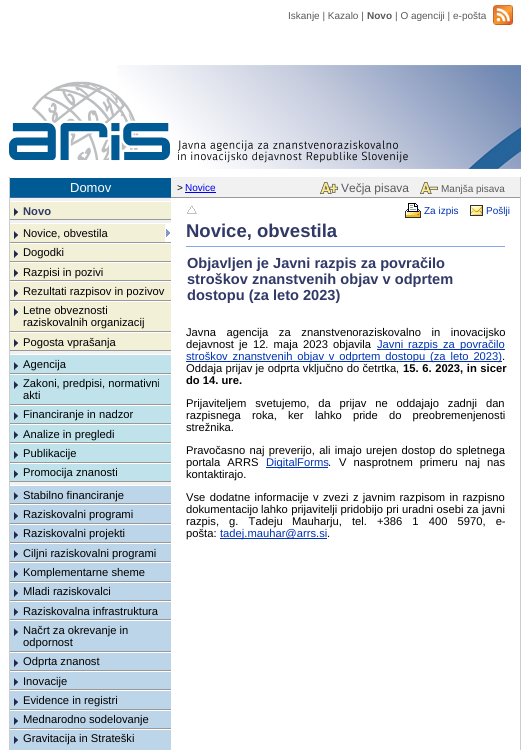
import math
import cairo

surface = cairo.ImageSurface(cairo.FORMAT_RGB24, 530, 750)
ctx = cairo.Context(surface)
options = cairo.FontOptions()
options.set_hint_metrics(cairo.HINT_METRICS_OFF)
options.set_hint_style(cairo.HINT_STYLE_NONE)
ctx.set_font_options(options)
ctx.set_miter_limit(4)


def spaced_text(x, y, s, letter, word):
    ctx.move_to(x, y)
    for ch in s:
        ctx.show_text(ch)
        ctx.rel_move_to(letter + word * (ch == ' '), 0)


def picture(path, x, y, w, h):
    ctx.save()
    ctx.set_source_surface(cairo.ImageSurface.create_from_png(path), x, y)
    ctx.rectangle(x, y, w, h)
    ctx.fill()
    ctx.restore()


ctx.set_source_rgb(1, 1, 1)
ctx.paint()
ctx.set_source_rgb(0.8, 0.8, 0.8)
ctx.rectangle(520, 177, 1, 573)
ctx.fill()
ctx.rectangle(9, 177, 1, 573)
ctx.fill()
ctx.set_source_rgb(0, 0.353, 0.58)
ctx.rectangle(10, 178, 161, 19)
ctx.fill()
ctx.set_source_rgb(0.212, 0.424, 0.639)
ctx.rectangle(10, 197, 161, 1)
ctx.fill()
ctx.select_font_face("Liberation Sans")
ctx.set_font_size(13)
ctx.set_source_rgb(1, 1, 1)
ctx.move_to(70, 192)
ctx.show_text("Domov")
ctx.set_source_rgb(0.945, 0.945, 0.945)
ctx.rectangle(171, 177, 349, 20)
ctx.fill()
ctx.set_source_rgb(0.6, 0.6, 0.6)
ctx.rectangle(171, 197, 349, 1)
ctx.fill()
ctx.set_font_size(10)
ctx.set_source_rgb(0, 0, 0)
ctx.move_to(177, 191)
ctx.show_text(">")
ctx.set_source_rgb(0, 0, 0.933)
ctx.move_to(185, 191)
ctx.show_text("Novice")
ctx.rectangle(185, 192, 31, 1)
ctx.fill()
ctx.set_source_rgb(0.345, 0.349, 0.357)
ctx.move_to(288, 19)
ctx.show_text("Iskanje | Kazalo |")
ctx.select_font_face("Liberation Sans", cairo.FONT_SLANT_NORMAL, cairo.FONT_WEIGHT_BOLD)
ctx.move_to(367, 19)
ctx.show_text("Novo")
ctx.select_font_face("Liberation Sans")
ctx.move_to(395, 19)
ctx.show_text("| O agenciji | e-pošta")
picture("img1.png", 493, 5, 20, 20)
picture("img2.png", 117, 65, 404, 104)
picture("img3.png", 9, 81, 399, 82)
picture("img4.png", 320, 182, 18, 12)
ctx.set_font_size(12)
ctx.move_to(341, 192)
ctx.show_text("Večja pisava")
picture("img5.png", 420, 182, 18, 12)
ctx.set_font_size(10)
ctx.move_to(441, 192)
ctx.show_text("Manjša pisava")
ctx.set_source_rgb(0.945, 0.945, 0.945)
ctx.rectangle(10, 198, 161, 287)
ctx.fill()
ctx.set_source_rgb(1, 1, 1)
ctx.rectangle(10, 201, 161, 1)
ctx.fill()
ctx.set_source_rgb(0.6, 0.6, 0.6)
ctx.rectangle(10, 219, 161, 1)
ctx.fill()
ctx.set_source_rgb(0.953, 0.941, 0.847)
ctx.rectangle(10, 202, 161, 17)
ctx.fill()
picture("img6.png", 14, 208, 4, 8)
ctx.select_font_face("Liberation Sans", cairo.FONT_SLANT_NORMAL, cairo.FONT_WEIGHT_BOLD)
ctx.set_font_size(11.2)
ctx.set_source_rgb(0.192, 0.224, 0.4)
ctx.move_to(23, 215)
ctx.show_text("Novo")
ctx.set_source_rgb(1, 1, 1)
ctx.rectangle(10, 223, 161, 1)
ctx.fill()
ctx.set_source_rgb(0.6, 0.6, 0.6)
ctx.rectangle(10, 242, 161, 1)
ctx.fill()
ctx.set_source_rgb(0.953, 0.941, 0.847)
ctx.rectangle(10, 224, 155, 18)
ctx.fill()
picture("img6.png", 14, 231, 4, 8)
ctx.set_source_rgb(1, 1, 1)
ctx.rectangle(165, 224, 6, 18)
ctx.fill()
picture("img7.png", 166, 229, 4, 8)
ctx.select_font_face("Liberation Sans")
ctx.set_source_rgb(0, 0, 0)
ctx.move_to(23, 237)
ctx.show_text("Novice, obvestila")
ctx.set_source_rgb(1, 1, 1)
ctx.rectangle(10, 243, 161, 1)
ctx.fill()
ctx.set_source_rgb(0.6, 0.6, 0.6)
ctx.rectangle(10, 261, 161, 1)
ctx.fill()
ctx.set_source_rgb(0.953, 0.941, 0.847)
ctx.rectangle(10, 244, 161, 17)
ctx.fill()
picture("img6.png", 14, 250, 4, 8)
ctx.set_source_rgb(0, 0, 0)
ctx.move_to(23, 256)
ctx.show_text("Dogodki")
ctx.set_source_rgb(1, 1, 1)
ctx.rectangle(10, 262, 161, 1)
ctx.fill()
ctx.set_source_rgb(0.6, 0.6, 0.6)
ctx.rectangle(10, 280, 161, 1)
ctx.fill()
ctx.set_source_rgb(0.953, 0.941, 0.847)
ctx.rectangle(10, 263, 161, 17)
ctx.fill()
picture("img6.png", 14, 269, 4, 8)
ctx.set_source_rgb(0, 0, 0)
ctx.move_to(23, 276)
ctx.show_text("Razpisi in pozivi")
ctx.set_source_rgb(1, 1, 1)
ctx.rectangle(10, 281, 161, 1)
ctx.fill()
ctx.set_source_rgb(0.6, 0.6, 0.6)
ctx.rectangle(10, 300, 161, 1)
ctx.fill()
ctx.set_source_rgb(0.953, 0.941, 0.847)
ctx.rectangle(10, 282, 161, 18)
ctx.fill()
picture("img6.png", 14, 289, 4, 8)
ctx.set_source_rgb(0, 0, 0)
ctx.move_to(23, 295)
ctx.show_text("Rezultati razpisov in pozivov")
ctx.set_source_rgb(1, 1, 1)
ctx.rectangle(10, 301, 161, 1)
ctx.fill()
ctx.set_source_rgb(0.6, 0.6, 0.6)
ctx.rectangle(10, 331, 161, 1)
ctx.fill()
ctx.set_source_rgb(0.953, 0.941, 0.847)
ctx.rectangle(10, 302, 161, 29)
ctx.fill()
picture("img6.png", 14, 308, 4, 8)
ctx.set_source_rgb(0, 0, 0)
ctx.move_to(23, 314)
ctx.show_text("Letne obveznosti")
ctx.move_to(23, 326)
ctx.show_text("raziskovalnih organizacij")
ctx.set_source_rgb(1, 1, 1)
ctx.rectangle(10, 332, 161, 1)
ctx.fill()
ctx.set_source_rgb(0.6, 0.6, 0.6)
ctx.rectangle(10, 350, 161, 1)
ctx.fill()
ctx.set_source_rgb(0.953, 0.941, 0.847)
ctx.rectangle(10, 333, 161, 17)
ctx.fill()
picture("img6.png", 14, 339, 4, 8)
ctx.set_source_rgb(0, 0, 0)
ctx.move_to(23, 346)
ctx.show_text("Pogosta vprašanja")
ctx.set_source_rgb(1, 1, 1)
ctx.rectangle(10, 354, 161, 1)
ctx.fill()
ctx.set_source_rgb(0.6, 0.6, 0.6)
ctx.rectangle(10, 373, 161, 1)
ctx.fill()
ctx.set_source_rgb(0.749, 0.886, 0.918)
ctx.rectangle(10, 355, 161, 18)
ctx.fill()
picture("img8.png", 14, 362, 4, 8)
ctx.set_source_rgb(0, 0, 0)
ctx.move_to(23, 368)
ctx.show_text("Agencija")
ctx.set_source_rgb(1, 1, 1)
ctx.rectangle(10, 374, 161, 1)
ctx.fill()
ctx.set_source_rgb(0.6, 0.6, 0.6)
ctx.rectangle(10, 404, 161, 1)
ctx.fill()
ctx.set_source_rgb(0.749, 0.886, 0.918)
ctx.rectangle(10, 375, 161, 29)
ctx.fill()
picture("img8.png", 14, 381, 4, 8)
ctx.set_source_rgb(0, 0, 0)
ctx.move_to(23, 387)
ctx.show_text("Zakoni, predpisi, normativni")
ctx.move_to(23, 399)
ctx.show_text("akti")
ctx.set_source_rgb(1, 1, 1)
ctx.rectangle(10, 405, 161, 1)
ctx.fill()
ctx.set_source_rgb(0.6, 0.6, 0.6)
ctx.rectangle(10, 423, 161, 1)
ctx.fill()
ctx.set_source_rgb(0.749, 0.886, 0.918)
ctx.rectangle(10, 406, 161, 17)
ctx.fill()
picture("img8.png", 14, 412, 4, 8)
ctx.set_source_rgb(0, 0, 0)
ctx.move_to(23, 418)
ctx.show_text("Financiranje in nadzor")
ctx.set_source_rgb(1, 1, 1)
ctx.rectangle(10, 424, 161, 1)
ctx.fill()
ctx.set_source_rgb(0.6, 0.6, 0.6)
ctx.rectangle(10, 442, 161, 1)
ctx.fill()
ctx.set_source_rgb(0.749, 0.886, 0.918)
ctx.rectangle(10, 425, 161, 17)
ctx.fill()
picture("img8.png", 14, 431, 4, 8)
ctx.set_source_rgb(0, 0, 0)
ctx.move_to(23, 438)
ctx.show_text("Analize in pregledi")
ctx.set_source_rgb(1, 1, 1)
ctx.rectangle(10, 443, 161, 1)
ctx.fill()
ctx.set_source_rgb(0.6, 0.6, 0.6)
ctx.rectangle(10, 462, 161, 1)
ctx.fill()
ctx.set_source_rgb(0.749, 0.886, 0.918)
ctx.rectangle(10, 444, 161, 18)
ctx.fill()
picture("img8.png", 14, 451, 4, 8)
ctx.set_source_rgb(0, 0, 0)
ctx.move_to(23, 457)
ctx.show_text("Publikacije")
ctx.set_source_rgb(1, 1, 1)
ctx.rectangle(10, 463, 161, 1)
ctx.fill()
ctx.set_source_rgb(0.6, 0.6, 0.6)
ctx.rectangle(10, 481, 161, 1)
ctx.fill()
ctx.set_source_rgb(0.749, 0.886, 0.918)
ctx.rectangle(10, 464, 161, 17)
ctx.fill()
picture("img8.png", 14, 470, 4, 8)
ctx.set_source_rgb(0, 0, 0)
ctx.move_to(23, 476)
ctx.show_text("Promocija znanosti")
ctx.set_source_rgb(0.6, 0.6, 0.6)
ctx.rectangle(10, 503, 161, 1)
ctx.fill()
ctx.set_source_rgb(0.741, 0.835, 0.91)
ctx.rectangle(10, 486, 161, 17)
ctx.fill()
picture("img9.png", 14, 492, 4, 8)
ctx.set_source_rgb(0, 0, 0)
ctx.move_to(23, 499)
ctx.show_text("Stabilno financiranje")
ctx.set_source_rgb(0.6, 0.6, 0.6)
ctx.rectangle(10, 523, 161, 1)
ctx.fill()
ctx.set_source_rgb(0.741, 0.835, 0.91)
ctx.rectangle(10, 505, 161, 18)
ctx.fill()
picture("img9.png", 14, 512, 4, 8)
ctx.set_source_rgb(0, 0, 0)
ctx.move_to(23, 518)
ctx.show_text("Raziskovalni programi")
ctx.set_source_rgb(0.6, 0.6, 0.6)
ctx.rectangle(10, 542, 161, 1)
ctx.fill()
ctx.set_source_rgb(0.741, 0.835, 0.91)
ctx.rectangle(10, 525, 161, 17)
ctx.fill()
picture("img9.png", 14, 531, 4, 8)
ctx.set_source_rgb(0, 0, 0)
ctx.move_to(23, 537)
ctx.show_text("Raziskovalni projekti")
ctx.set_source_rgb(0.6, 0.6, 0.6)
ctx.rectangle(10, 561, 161, 1)
ctx.fill()
ctx.set_source_rgb(0.741, 0.835, 0.91)
ctx.rectangle(10, 544, 161, 17)
ctx.fill()
picture("img9.png", 14, 550, 4, 8)
ctx.set_source_rgb(0, 0, 0)
ctx.move_to(23, 557)
ctx.show_text("Ciljni raziskovalni programi")
ctx.set_source_rgb(0.6, 0.6, 0.6)
ctx.rectangle(10, 581, 161, 1)
ctx.fill()
ctx.set_source_rgb(0.741, 0.835, 0.91)
ctx.rectangle(10, 563, 161, 18)
ctx.fill()
picture("img9.png", 14, 570, 4, 8)
ctx.set_source_rgb(0, 0, 0)
ctx.move_to(23, 576)
ctx.show_text("Komplementarne sheme")
ctx.set_source_rgb(0.6, 0.6, 0.6)
ctx.rectangle(10, 600, 161, 1)
ctx.fill()
ctx.set_source_rgb(0.741, 0.835, 0.91)
ctx.rectangle(10, 583, 161, 17)
ctx.fill()
picture("img9.png", 14, 589, 4, 8)
ctx.set_source_rgb(0, 0, 0)
ctx.move_to(23, 595)
ctx.show_text("Mladi raziskovalci")
ctx.set_source_rgb(0.6, 0.6, 0.6)
ctx.rectangle(10, 619, 161, 1)
ctx.fill()
ctx.set_source_rgb(0.741, 0.835, 0.91)
ctx.rectangle(10, 602, 161, 17)
ctx.fill()
picture("img9.png", 14, 608, 4, 8)
ctx.set_source_rgb(0, 0, 0)
ctx.move_to(23, 615)
ctx.show_text("Raziskovalna infrastruktura")
ctx.set_source_rgb(0.6, 0.6, 0.6)
ctx.rectangle(10, 651, 161, 1)
ctx.fill()
ctx.set_source_rgb(0.741, 0.835, 0.91)
ctx.rectangle(10, 621, 161, 30)
ctx.fill()
picture("img9.png", 14, 628, 4, 8)
ctx.set_source_rgb(0, 0, 0)
ctx.move_to(23, 634)
ctx.show_text("Načrt za okrevanje in")
ctx.move_to(23, 646)
ctx.show_text("odpornost")
ctx.set_source_rgb(0.6, 0.6, 0.6)
ctx.rectangle(10, 670, 161, 1)
ctx.fill()
ctx.set_source_rgb(0.741, 0.835, 0.91)
ctx.rectangle(10, 653, 161, 17)
ctx.fill()
picture("img9.png", 14, 659, 4, 8)
ctx.set_source_rgb(0, 0, 0)
ctx.move_to(23, 665)
ctx.show_text("Odprta znanost")
ctx.set_source_rgb(0.6, 0.6, 0.6)
ctx.rectangle(10, 689, 161, 1)
ctx.fill()
ctx.set_source_rgb(0.741, 0.835, 0.91)
ctx.rectangle(10, 672, 161, 17)
ctx.fill()
picture("img9.png", 14, 678, 4, 8)
ctx.set_source_rgb(0, 0, 0)
ctx.move_to(23, 685)
ctx.show_text("Inovacije")
ctx.set_source_rgb(0.6, 0.6, 0.6)
ctx.rectangle(10, 709, 161, 1)
ctx.fill()
ctx.set_source_rgb(0.741, 0.835, 0.91)
ctx.rectangle(10, 691, 161, 18)
ctx.fill()
picture("img9.png", 14, 698, 4, 8)
ctx.set_source_rgb(0, 0, 0)
ctx.move_to(23, 704)
ctx.show_text("Evidence in registri")
ctx.set_source_rgb(0.6, 0.6, 0.6)
ctx.rectangle(10, 728, 161, 1)
ctx.fill()
ctx.set_source_rgb(0.741, 0.835, 0.91)
ctx.rectangle(10, 711, 161, 17)
ctx.fill()
picture("img9.png", 14, 717, 4, 8)
ctx.set_source_rgb(0, 0, 0)
ctx.move_to(23, 723)
ctx.show_text("Mednarodno sodelovanje")
ctx.set_source_rgb(0.741, 0.835, 0.91)
ctx.rectangle(10, 730, 161, 20)
ctx.fill()
picture("img9.png", 14, 736, 4, 8)
ctx.set_source_rgb(0, 0, 0)
ctx.move_to(23, 742)
ctx.show_text("Gravitacija in Strateški")
picture("img10.png", 187, 206, 10, 8)
picture("img11.png", 405, 203, 16, 15)
ctx.set_font_size(10)
ctx.set_source_rgb(0, 0.196, 0.71)
ctx.move_to(424, 214)
ctx.show_text("Za izpis")
picture("img12.png", 470, 205, 13, 11)
ctx.move_to(486, 214)
ctx.show_text("Pošlji")
ctx.set_source_rgb(0.502, 0.659, 0.918)
ctx.rectangle(186, 246, 319, 1)
ctx.fill()
ctx.select_font_face("Liberation Sans", cairo.FONT_SLANT_NORMAL, cairo.FONT_WEIGHT_BOLD)
ctx.set_font_size(18.5)
ctx.set_source_rgb(0.192, 0.224, 0.4)
ctx.move_to(186, 237)
ctx.show_text("Novice, obvestila")
ctx.set_font_size(14.6)
ctx.move_to(187, 268)
ctx.show_text("Objavljen je Javni razpis za povračilo")
ctx.move_to(187, 284)
ctx.show_text("stroškov znanstvenih objav v odprtem")
ctx.move_to(187, 300)
ctx.show_text("dostopu (za leto 2023)")
ctx.select_font_face("Liberation Sans")
ctx.set_font_size(11.2)
ctx.set_source_rgb(0, 0, 0)
spaced_text(186, 336, "Javna agencija za znanstvenoraziskovalno in inovacijsko", 0, 7.5)
spaced_text(186, 348, "dejavnost je 12. maja", 0, 2)
spaced_text(303, 348, "2023 objavila", 0, 2)
ctx.set_source_rgb(0, 0.196, 0.71)
ctx.move_to(377, 348)
ctx.show_text("Javni")
ctx.rectangle(377, 349, 128, 1)
ctx.fill()
spaced_text(408, 348, "razpis za povračilo", 0, 2)
ctx.rectangle(186, 361, 316, 1)
ctx.fill()
spaced_text(186, 360, "stroškov znanstvenih objav v odprtem dostopu (za leto 2023)", 0, 1.75)
ctx.set_source_rgb(0, 0, 0)
ctx.move_to(502, 360)
ctx.show_text(".")
spaced_text(186, 372, "Oddaja prijav je odprta vključno do četrtka,", 0, 0.25)
ctx.select_font_face("Liberation Sans", cairo.FONT_SLANT_NORMAL, cairo.FONT_WEIGHT_BOLD)
spaced_text(403, 372, "15. 6. 2023, in sicer", 0, 0.5)
ctx.move_to(186, 384)
ctx.show_text("do 14. ure.")
ctx.select_font_face("Liberation Sans")
spaced_text(186, 407, "Prijaviteljem svetujemo, da prijav ne oddajajo zadnji dan", 0, 5.75)
spaced_text(186, 419, "razpisnega roka, ker", 0, 8)
spaced_text(315, 419, "lahko pride do preobremenjenosti", 0, 8)
ctx.move_to(186, 431)
ctx.show_text("strežnika.")
spaced_text(186, 454, "Pravočasno naj preverijo, ali imajo urejen dostop do spletnega", 0, 1.25)
spaced_text(186, 466, "portala ARRS", 0, 4)
ctx.set_source_rgb(0, 0.196, 0.71)
ctx.rectangle(266, 467, 62, 1)
ctx.fill()
ctx.move_to(266, 466)
ctx.show_text("DigitalForms")
ctx.set_source_rgb(0, 0, 0)
ctx.move_to(328, 466)
ctx.show_text(".")
spaced_text(339, 466, "V nasprotnem primeru naj nas", 0, 4)
ctx.move_to(186, 478)
ctx.show_text("kontaktirajo.")
spaced_text(186, 501, "Vse dodatne informacije v zvezi z javnim razpisom in razpisno", 0, 1.25)
ctx.move_to(186, 513)
ctx.show_text("dokumentacijo")
spaced_text(261, 513, "lahko prijavitelji pridobijo pri uradni osebi za javni", 0, 0.25)
spaced_text(186, 525, "razpis, g. Tadeju", 0, 7)
spaced_text(292, 525, "Mauharju, tel. +386 1 400 5970, e-", 0, 7)
ctx.move_to(186, 537)
ctx.show_text("pošta:")
ctx.set_source_rgb(0, 0.196, 0.71)
ctx.rectangle(220, 538, 107, 1)
ctx.fill()
ctx.move_to(220, 537)
ctx.show_text("tadej.mauhar@arrs.si")
ctx.set_source_rgb(0, 0, 0)
ctx.move_to(327, 537)
ctx.show_text(".")
surface.write_to_png("page.png")
